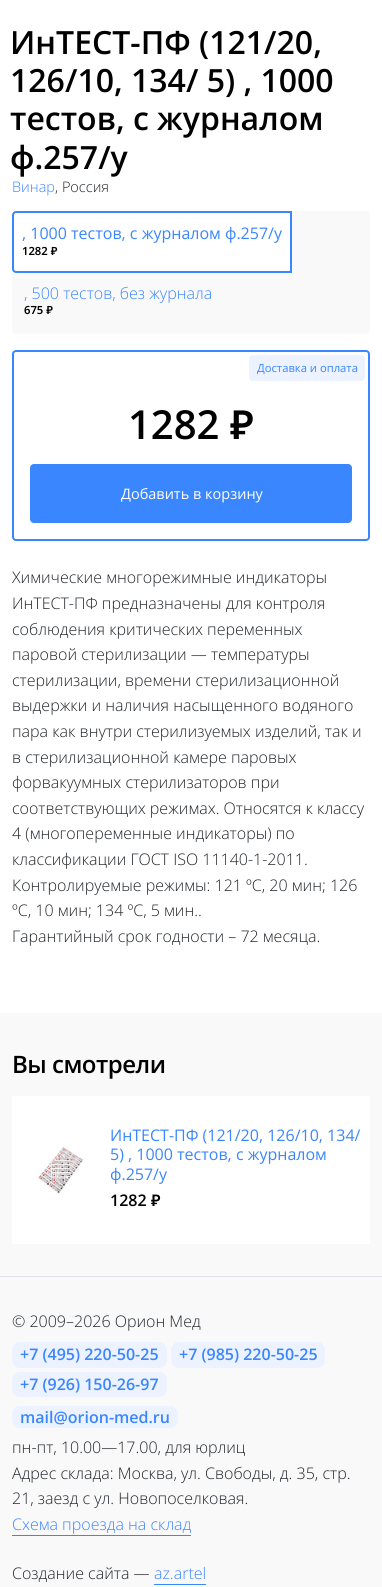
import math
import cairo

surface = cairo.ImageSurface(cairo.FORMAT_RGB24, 382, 1587)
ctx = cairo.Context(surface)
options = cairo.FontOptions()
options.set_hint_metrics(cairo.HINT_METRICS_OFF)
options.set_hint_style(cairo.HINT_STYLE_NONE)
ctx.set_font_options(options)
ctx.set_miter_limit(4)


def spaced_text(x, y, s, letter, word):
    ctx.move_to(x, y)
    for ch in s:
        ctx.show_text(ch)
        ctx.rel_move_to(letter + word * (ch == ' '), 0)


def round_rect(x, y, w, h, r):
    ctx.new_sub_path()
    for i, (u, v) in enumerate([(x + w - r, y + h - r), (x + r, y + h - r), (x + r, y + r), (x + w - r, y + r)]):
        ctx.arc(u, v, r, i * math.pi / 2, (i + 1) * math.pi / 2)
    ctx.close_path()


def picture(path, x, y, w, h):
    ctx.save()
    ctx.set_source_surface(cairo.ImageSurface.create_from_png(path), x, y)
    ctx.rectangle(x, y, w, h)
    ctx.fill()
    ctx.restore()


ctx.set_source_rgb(1, 1, 1)
ctx.paint()
ctx.select_font_face("Open Sans SemiBold")
ctx.set_font_size(32)
ctx.set_source_rgb(0, 0, 0)
ctx.move_to(10, 54)
ctx.show_text("ИнТЕСТ-ПФ (121/20,")
ctx.move_to(10, 92)
ctx.show_text("126/10, 134/ 5) , 1000")
ctx.move_to(10, 130)
ctx.show_text("тестов, с журналом")
ctx.move_to(10, 169)
ctx.show_text("ф.257/у")
ctx.select_font_face("Open Sans Light")
ctx.set_font_size(14.5)
ctx.set_source_rgb(0.227, 0.525, 1)
ctx.move_to(12, 192)
ctx.show_text("Винар")
ctx.set_source_rgb(0.129, 0.145, 0.161)
ctx.move_to(55, 192)
ctx.show_text(", Россия")
ctx.set_source_rgb(0.973, 0.976, 0.98)
round_rect(12, 211, 358, 123, 4)
ctx.fill()
ctx.set_source_rgb(1, 1, 1)
ctx.new_path()
ctx.move_to(16, 212)
ctx.line_to(291, 212)
ctx.line_to(291, 272)
ctx.line_to(16, 272)
ctx.curve_to(14.5, 272, 13, 270.5, 13, 269)
ctx.line_to(13, 215)
ctx.curve_to(13, 213.5, 14.5, 212, 16, 212)
ctx.close_path()
ctx.fill_preserve()
ctx.set_source_rgb(0.227, 0.525, 1)
ctx.stroke()
ctx.select_font_face("Open Sans")
ctx.set_font_size(16)
ctx.move_to(22, 239)
ctx.show_text(", 1000 тестов, с журналом ф.257/у")
ctx.select_font_face("Noto Sans SemiBold")
ctx.set_font_size(11.25)
ctx.set_source_rgb(0, 0, 0)
ctx.move_to(22, 255)
ctx.show_text("1282 ₽")
ctx.select_font_face("Open Sans Light")
ctx.set_font_size(16)
ctx.set_source_rgb(0.227, 0.525, 1)
ctx.move_to(24, 299)
ctx.show_text(", 500 тестов, без журнала")
ctx.select_font_face("Noto Sans SemiBold")
ctx.set_font_size(11.25)
ctx.set_source_rgb(0, 0, 0)
ctx.move_to(24, 314)
ctx.show_text("675 ₽")
round_rect(13, 351, 356, 189, 3)
ctx.set_source_rgb(0.227, 0.525, 1)
ctx.stroke()
ctx.set_source_rgb(0.922, 0.949, 1)
round_rect(249, 355, 116, 26, 4)
ctx.fill()
ctx.select_font_face("Open Sans")
ctx.set_source_rgb(0.227, 0.525, 1)
ctx.move_to(257, 372)
ctx.show_text("Доставка и оплата")
ctx.select_font_face("Open Sans SemiBold")
ctx.set_font_size(40)
ctx.set_source_rgb(0, 0, 0)
ctx.move_to(128, 439)
ctx.show_text("1282")
ctx.select_font_face("Noto Sans SemiBold")
ctx.move_to(230, 439)
ctx.show_text("₽")
ctx.set_source_rgb(0.227, 0.525, 1)
round_rect(30.5, 464.5, 321, 58, 3.5)
ctx.fill_preserve()
ctx.set_line_width(1)
ctx.stroke()
ctx.select_font_face("Open Sans")
ctx.set_font_size(14.5)
ctx.set_source_rgb(1, 1, 1)
ctx.move_to(121, 499)
ctx.show_text("Добавить в корзину")
ctx.select_font_face("Open Sans Light")
ctx.set_font_size(16)
ctx.set_source_rgb(0.129, 0.145, 0.161)
ctx.move_to(12, 583)
ctx.show_text("Химические многорежимные индикаторы")
ctx.move_to(12, 609)
ctx.show_text("ИнТЕСТ-ПФ предназначены для контроля")
ctx.move_to(12, 635)
ctx.show_text("соблюдения критических переменных")
ctx.move_to(12, 660)
ctx.show_text("паровой стерилизации — температуры")
ctx.move_to(12, 686)
ctx.show_text("стерилизации, времени стерилизационной")
ctx.move_to(12, 711)
ctx.show_text("выдержки и наличия насыщенного водяного")
ctx.move_to(12, 737)
ctx.show_text("пара как внутри стерилизуемых изделий, так и")
ctx.move_to(12, 763)
ctx.show_text("в стерилизационной камере паровых")
ctx.move_to(12, 788)
ctx.show_text("форвакуумных стерилизаторов при")
ctx.move_to(12, 814)
ctx.show_text("соответствующих режимах. Относятся к классу")
ctx.move_to(12, 839)
ctx.show_text("4 (многопеременные индикаторы) по")
ctx.move_to(12, 865)
ctx.show_text("классификации ГОСТ ISO 11140-1-2011.")
ctx.move_to(12, 891)
ctx.show_text("Контролируемые режимы: 121 ºС, 20 мин; 126")
ctx.move_to(12, 916)
ctx.show_text("ºС, 10 мин; 134 ºС, 5 мин..")
ctx.move_to(12, 942)
ctx.show_text("Гарантийный срок годности – 72 месяца.")
ctx.set_source_rgb(0.973, 0.976, 0.98)
ctx.rectangle(0, 1013, 382, 574)
ctx.fill()
ctx.set_source_rgb(0.871, 0.886, 0.902)
ctx.rectangle(0, 1276, 382, 1)
ctx.fill()
ctx.select_font_face("Open Sans SemiBold")
ctx.set_font_size(24)
ctx.set_source_rgb(0, 0, 0)
spaced_text(12, 1073, "Вы смотрели", -0.5, 0)
ctx.set_source_rgb(1, 1, 1)
ctx.rectangle(12, 1096, 358, 148)
ctx.fill()
picture("img1.png", 38, 1147, 46, 47)
ctx.select_font_face("Open Sans")
ctx.set_font_size(16)
ctx.set_source_rgb(0.227, 0.525, 1)
ctx.move_to(110, 1141)
ctx.show_text("ИнТЕСТ-ПФ (121/20, 126/10, 134/")
ctx.move_to(110, 1160)
ctx.show_text("5) , 1000 тестов, с журналом")
ctx.move_to(110, 1180)
ctx.show_text("ф.257/у")
ctx.select_font_face("Open Sans SemiBold")
ctx.set_source_rgb(0, 0, 0)
ctx.move_to(110, 1206)
ctx.show_text("1282")
ctx.select_font_face("Noto Sans SemiBold")
ctx.move_to(151, 1206)
ctx.show_text("₽")
ctx.select_font_face("Open Sans Light")
ctx.set_source_rgb(0.129, 0.145, 0.161)
ctx.move_to(12, 1327)
ctx.show_text("© 2009–2026 Орион Мед")
ctx.set_source_rgb(0.922, 0.949, 1)
round_rect(12, 1342, 155, 26, 8)
ctx.fill()
ctx.select_font_face("Open Sans SemiBold")
ctx.set_source_rgb(0.227, 0.525, 1)
ctx.move_to(20, 1360)
ctx.show_text("+7 (495) 220-50-25")
ctx.set_source_rgb(0.922, 0.949, 1)
round_rect(171, 1342, 154, 26, 8)
ctx.fill()
ctx.set_source_rgb(0.227, 0.525, 1)
ctx.move_to(179, 1360)
ctx.show_text("+7 (985) 220-50-25")
ctx.set_source_rgb(0.922, 0.949, 1)
round_rect(12, 1372, 155, 25, 8)
ctx.fill()
ctx.set_source_rgb(0.227, 0.525, 1)
ctx.move_to(20, 1390)
ctx.show_text("+7 (926) 150-26-97")
ctx.set_source_rgb(0.922, 0.949, 1)
round_rect(12, 1406, 166, 22, 8)
ctx.fill()
ctx.set_source_rgb(0.227, 0.525, 1)
ctx.move_to(20, 1423)
ctx.show_text("mail@orion-med.ru")
ctx.select_font_face("Open Sans Light")
ctx.set_source_rgb(0.129, 0.145, 0.161)
ctx.move_to(12, 1453)
ctx.show_text("пн-пт, 10.00—17.00, для юрлиц")
ctx.move_to(12, 1479)
ctx.show_text("Адрес склада: Москва, ул. Свободы, д. 35, стр.")
ctx.move_to(12, 1504)
ctx.show_text("21, заезд с ул. Новопоселковая.")
ctx.set_source_rgb(0.227, 0.525, 1)
ctx.move_to(12, 1530)
ctx.show_text("Схема проезда на склад")
ctx.rectangle(12, 1535, 179, 1)
ctx.fill()
ctx.set_source_rgb(0.129, 0.145, 0.161)
ctx.move_to(12, 1579)
ctx.show_text("Создание сайта —")
ctx.set_source_rgb(0.227, 0.525, 1)
ctx.move_to(154, 1579)
ctx.show_text("az.artel")
ctx.rectangle(154, 1584, 52, 1)
ctx.fill()
surface.write_to_png("page.png")
